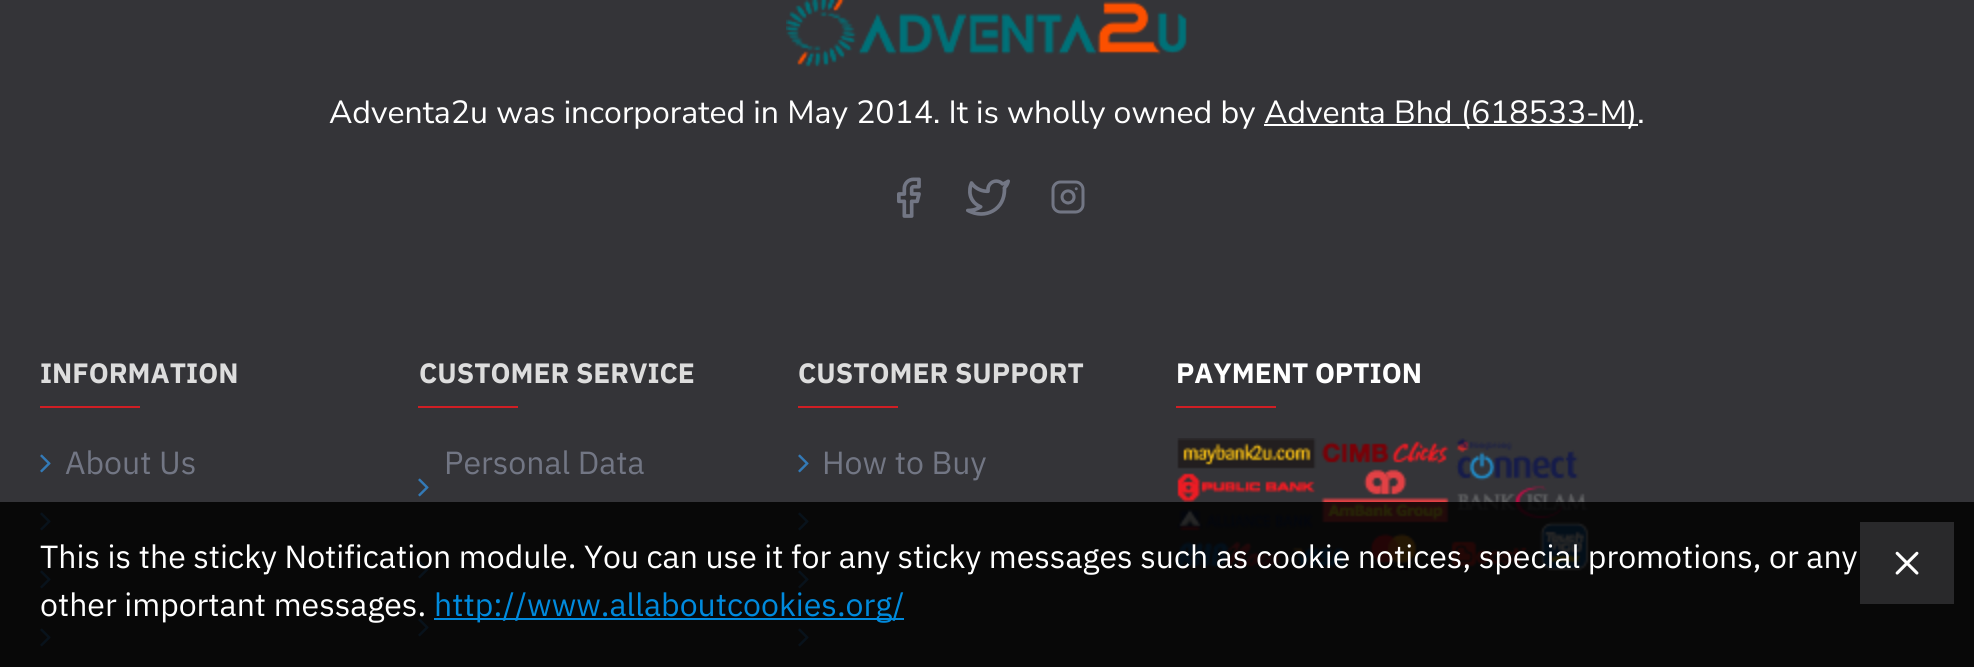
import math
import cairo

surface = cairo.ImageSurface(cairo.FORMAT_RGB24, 1974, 667)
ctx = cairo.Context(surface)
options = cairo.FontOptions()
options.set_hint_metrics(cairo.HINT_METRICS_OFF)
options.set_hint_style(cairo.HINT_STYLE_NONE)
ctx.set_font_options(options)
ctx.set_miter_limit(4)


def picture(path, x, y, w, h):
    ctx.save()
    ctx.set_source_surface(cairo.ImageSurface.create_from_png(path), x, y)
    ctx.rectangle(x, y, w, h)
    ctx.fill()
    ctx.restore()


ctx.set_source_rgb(0.204, 0.204, 0.22)
ctx.paint()
picture("img1.png", 786, 0, 401, 67)
ctx.select_font_face("Nunito Sans")
ctx.set_font_size(32)
ctx.set_source_rgb(1, 1, 1)
ctx.move_to(329, 123)
ctx.show_text("Adventa2u was incorporated in May 2014. It is wholly owned by")
ctx.rectangle(1264, 124, 374, 2)
ctx.fill()
ctx.move_to(1264, 123)
ctx.show_text("Adventa Bhd (618533-M).")
picture("img2.png", 897, 177, 24, 41)
picture("img3.png", 966, 179, 44, 37)
picture("img4.png", 1051, 180, 34, 34)
ctx.select_font_face("IBM Plex Sans", cairo.FONT_SLANT_NORMAL, cairo.FONT_WEIGHT_BOLD)
ctx.set_font_size(28)
ctx.set_source_rgb(0.867, 0.867, 0.867)
ctx.move_to(40, 383)
ctx.show_text("INFORMATION")
ctx.set_source_rgb(0.816, 0.118, 0.141)
ctx.rectangle(40, 406, 100, 2)
ctx.fill()
picture("img5.png", 40, 454, 11, 19)
ctx.select_font_face("IBM Plex Sans")
ctx.set_font_size(32)
ctx.set_source_rgb(0.447, 0.463, 0.518)
ctx.move_to(65, 474)
ctx.show_text("About Us")
picture("img5.png", 40, 512, 11, 19)
picture("img5.png", 40, 570, 11, 19)
picture("img5.png", 40, 628, 11, 19)
ctx.select_font_face("IBM Plex Sans", cairo.FONT_SLANT_NORMAL, cairo.FONT_WEIGHT_BOLD)
ctx.set_font_size(28)
ctx.set_source_rgb(0.867, 0.867, 0.867)
ctx.move_to(419, 383)
ctx.show_text("CUSTOMER SERVICE")
ctx.set_source_rgb(0.816, 0.118, 0.141)
ctx.rectangle(418, 406, 100, 2)
ctx.fill()
ctx.select_font_face("IBM Plex Sans")
ctx.set_font_size(32)
ctx.set_source_rgb(0.447, 0.463, 0.518)
ctx.move_to(444, 474)
ctx.show_text("Personal Data")
picture("img5.png", 418, 478, 11, 19)
picture("img5.png", 418, 560, 11, 19)
picture("img5.png", 418, 618, 11, 19)
ctx.select_font_face("IBM Plex Sans", cairo.FONT_SLANT_NORMAL, cairo.FONT_WEIGHT_BOLD)
ctx.set_font_size(28)
ctx.set_source_rgb(0.867, 0.867, 0.867)
ctx.move_to(798, 383)
ctx.show_text("CUSTOMER SUPPORT")
ctx.set_source_rgb(0.816, 0.118, 0.141)
ctx.rectangle(798, 406, 100, 2)
ctx.fill()
picture("img5.png", 798, 454, 11, 19)
ctx.select_font_face("IBM Plex Sans")
ctx.set_font_size(32)
ctx.set_source_rgb(0.447, 0.463, 0.518)
ctx.move_to(822, 474)
ctx.show_text("How to Buy")
picture("img5.png", 798, 512, 11, 19)
picture("img5.png", 798, 570, 11, 19)
picture("img5.png", 798, 628, 11, 19)
ctx.select_font_face("IBM Plex Sans", cairo.FONT_SLANT_NORMAL, cairo.FONT_WEIGHT_BOLD)
ctx.set_font_size(28)
ctx.set_source_rgb(1, 1, 1)
ctx.move_to(1176, 383)
ctx.show_text("PAYMENT OPTION")
ctx.set_source_rgb(0.816, 0.118, 0.141)
ctx.rectangle(1176, 406, 100, 2)
ctx.fill()
picture("img6.png", 1177, 438, 412, 133)
ctx.set_source_rgba(0, 0, 0, 0.85)
ctx.rectangle(0, 502, 1974, 165)
ctx.fill()
ctx.select_font_face("IBM Plex Sans")
ctx.set_font_size(32)
ctx.set_source_rgb(1, 1, 1)
ctx.move_to(40, 568)
ctx.show_text("This is the sticky Notification module. You can use it for any sticky messages such as cookie notices, special promotions, or any")
ctx.move_to(40, 616)
ctx.show_text("other important messages.")
ctx.set_source_rgb(0, 0.541, 0.867)
ctx.rectangle(434, 618, 470, 2)
ctx.fill()
ctx.move_to(434, 616)
ctx.show_text("http://www.allaboutcookies.org/")
ctx.set_source_rgb(0.161, 0.161, 0.169)
ctx.rectangle(1860, 522, 94, 82)
ctx.fill()
picture("img7.png", 1895, 551, 24, 24)
surface.write_to_png("page.png")
